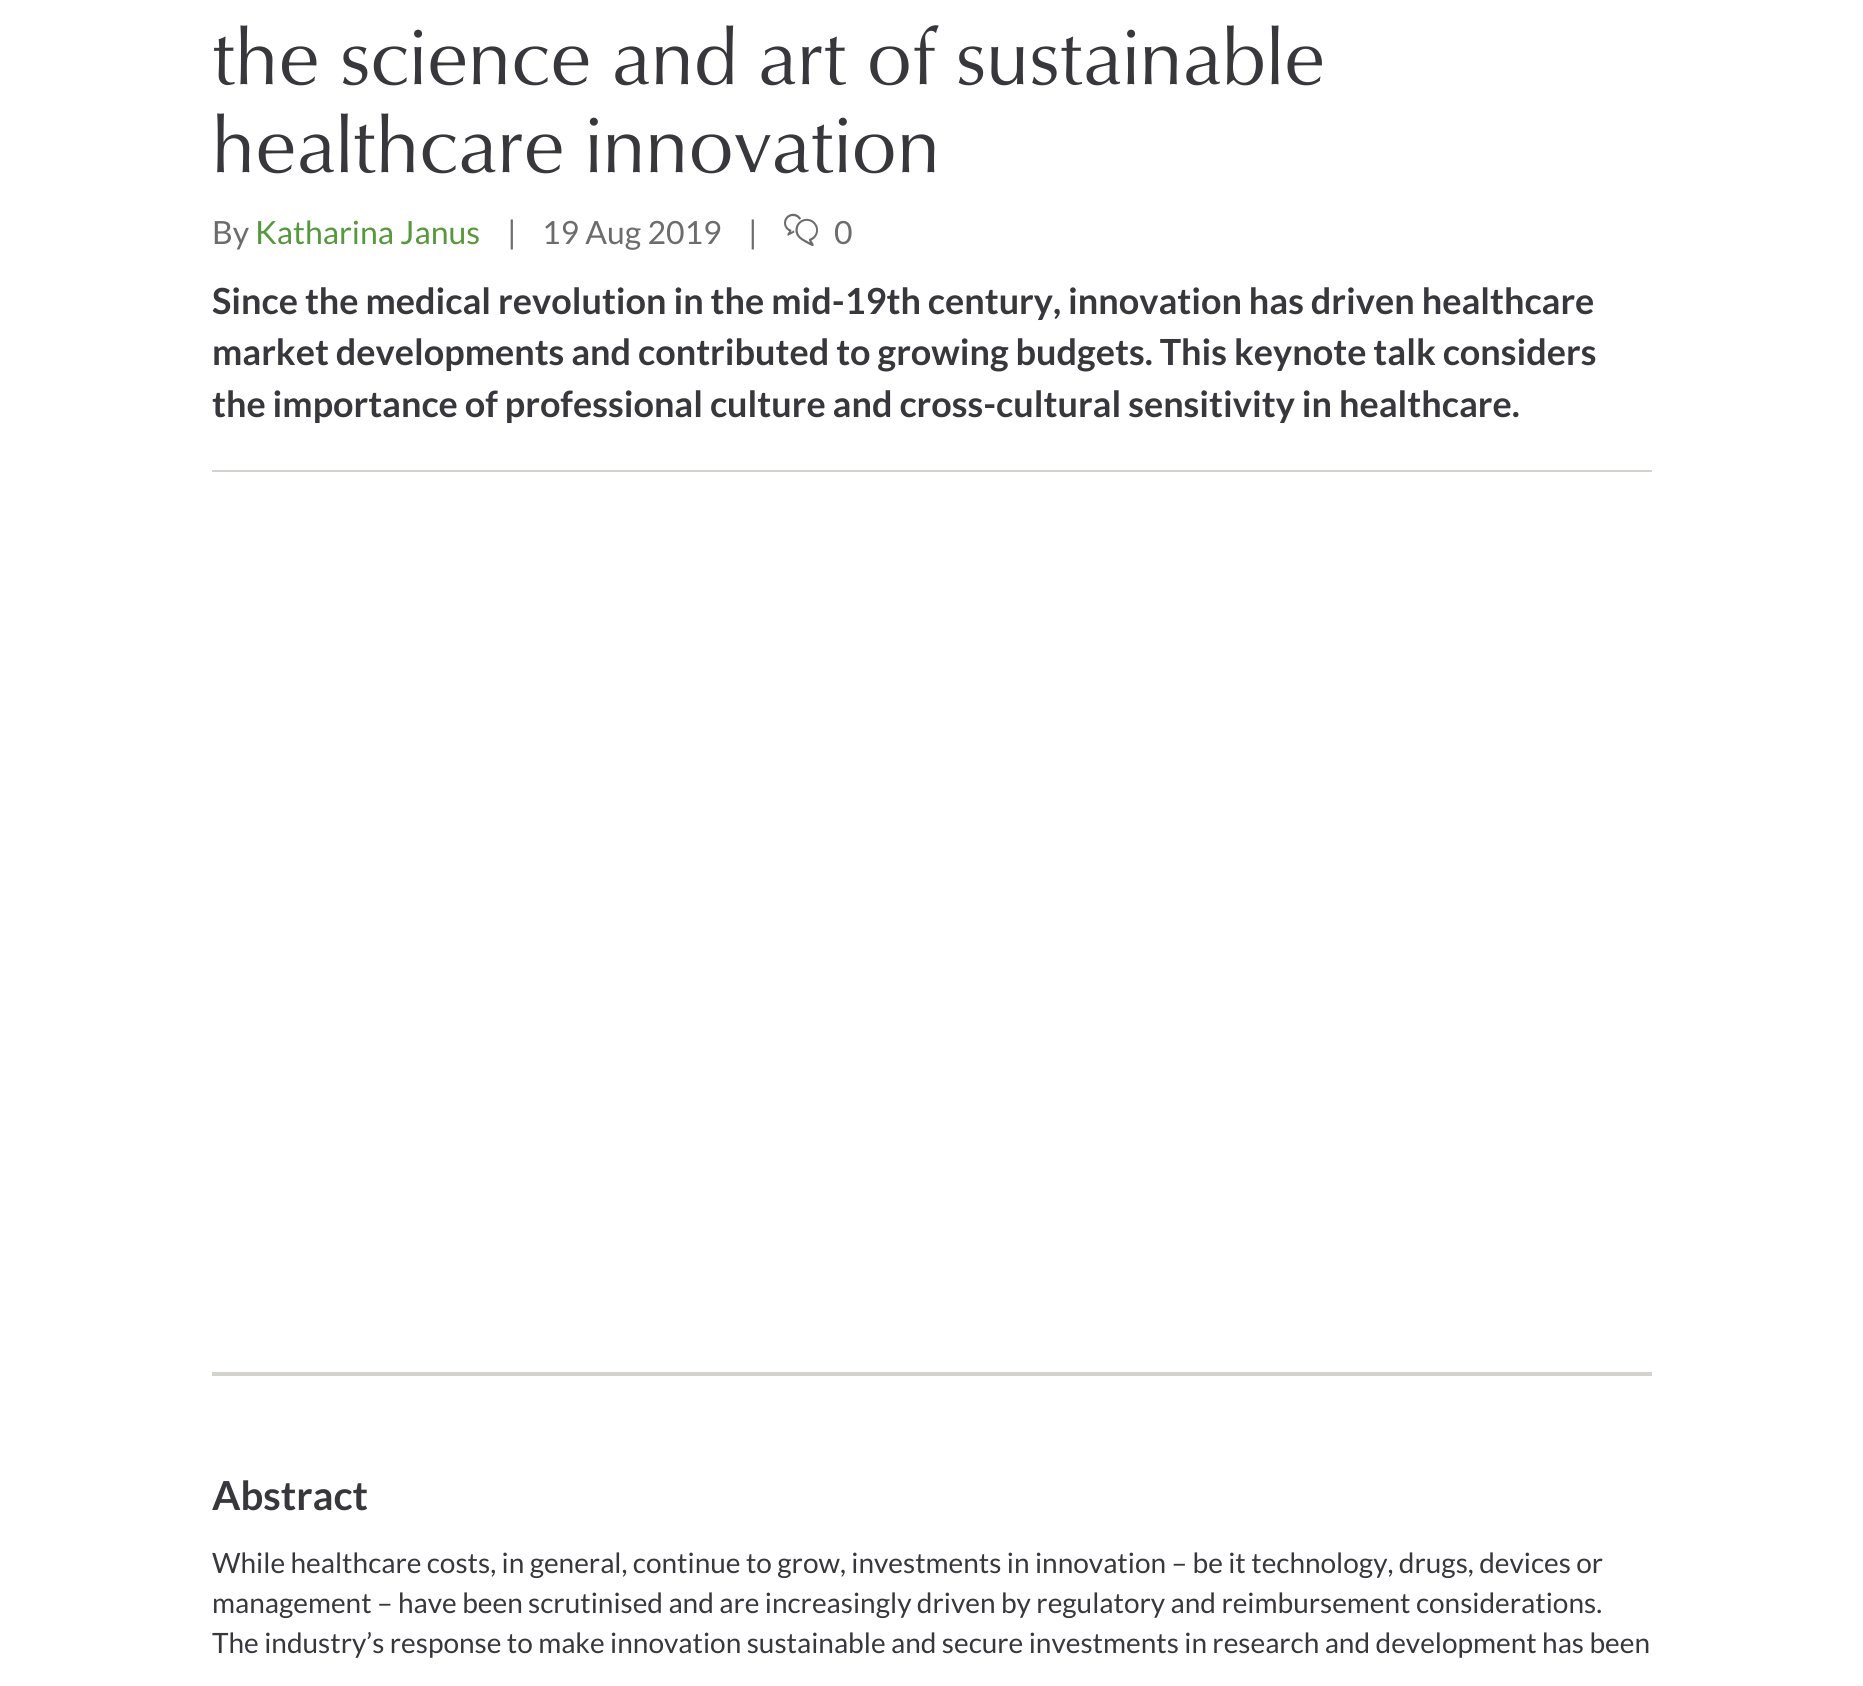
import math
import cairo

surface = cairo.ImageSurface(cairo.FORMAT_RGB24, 1863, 1686)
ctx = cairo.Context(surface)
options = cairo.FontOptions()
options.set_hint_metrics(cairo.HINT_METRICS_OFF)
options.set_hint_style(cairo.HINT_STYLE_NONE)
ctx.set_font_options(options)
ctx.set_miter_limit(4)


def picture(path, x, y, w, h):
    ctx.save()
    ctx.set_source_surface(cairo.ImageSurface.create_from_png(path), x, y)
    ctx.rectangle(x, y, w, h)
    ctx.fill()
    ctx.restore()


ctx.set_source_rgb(1, 1, 1)
ctx.paint()
ctx.select_font_face("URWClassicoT")
ctx.set_font_size(80)
ctx.set_source_rgb(0.216, 0.216, 0.235)
ctx.move_to(212, 84)
ctx.show_text("the science and art of sustainable")
ctx.move_to(212, 172)
ctx.show_text("healthcare innovation")
ctx.select_font_face("Lato")
ctx.set_font_size(32)
ctx.set_source_rgb(0.424, 0.424, 0.424)
ctx.move_to(212, 244)
ctx.show_text("By")
ctx.set_source_rgb(0.341, 0.596, 0.243)
ctx.move_to(255, 244)
ctx.show_text("Katharina Janus")
ctx.set_source_rgb(0.424, 0.424, 0.424)
ctx.move_to(507, 244)
ctx.show_text("|")
ctx.move_to(542, 244)
ctx.show_text("19 Aug 2019")
ctx.move_to(748, 244)
ctx.show_text("|")
picture("img1.png", 784, 213, 34, 33)
ctx.move_to(834, 244)
ctx.show_text("0")
ctx.select_font_face("Lato", cairo.FONT_SLANT_NORMAL, cairo.FONT_WEIGHT_BOLD)
ctx.set_font_size(36)
ctx.set_source_rgb(0.216, 0.216, 0.235)
ctx.move_to(212, 314)
ctx.show_text("Since the medical revolution in the mid-19th century, innovation has driven healthcare")
ctx.move_to(212, 365)
ctx.show_text("market developments and contributed to growing budgets. This keynote talk considers")
ctx.move_to(212, 417)
ctx.show_text("the importance of professional culture and cross-cultural sensitivity in healthcare.")
ctx.set_source_rgb(0.827, 0.824, 0.804)
ctx.rectangle(212, 470, 1440, 2)
ctx.fill()
ctx.rectangle(212, 1372, 1440, 4)
ctx.fill()
ctx.set_font_size(40)
ctx.set_source_rgb(0.216, 0.216, 0.235)
ctx.move_to(212, 1510)
ctx.show_text("Abstract")
ctx.select_font_face("Lato")
ctx.set_font_size(28)
ctx.move_to(212, 1573)
ctx.show_text("While healthcare costs, in general, continue to grow, investments in innovation – be it technology, drugs, devices or")
ctx.move_to(212, 1613)
ctx.show_text("management – have been scrutinised and are increasingly driven by regulatory and reimbursement considerations.")
ctx.move_to(212, 1653)
ctx.show_text("The industry’s response to make innovation sustainable and secure investments in research and development has been")
surface.write_to_png("page.png")
